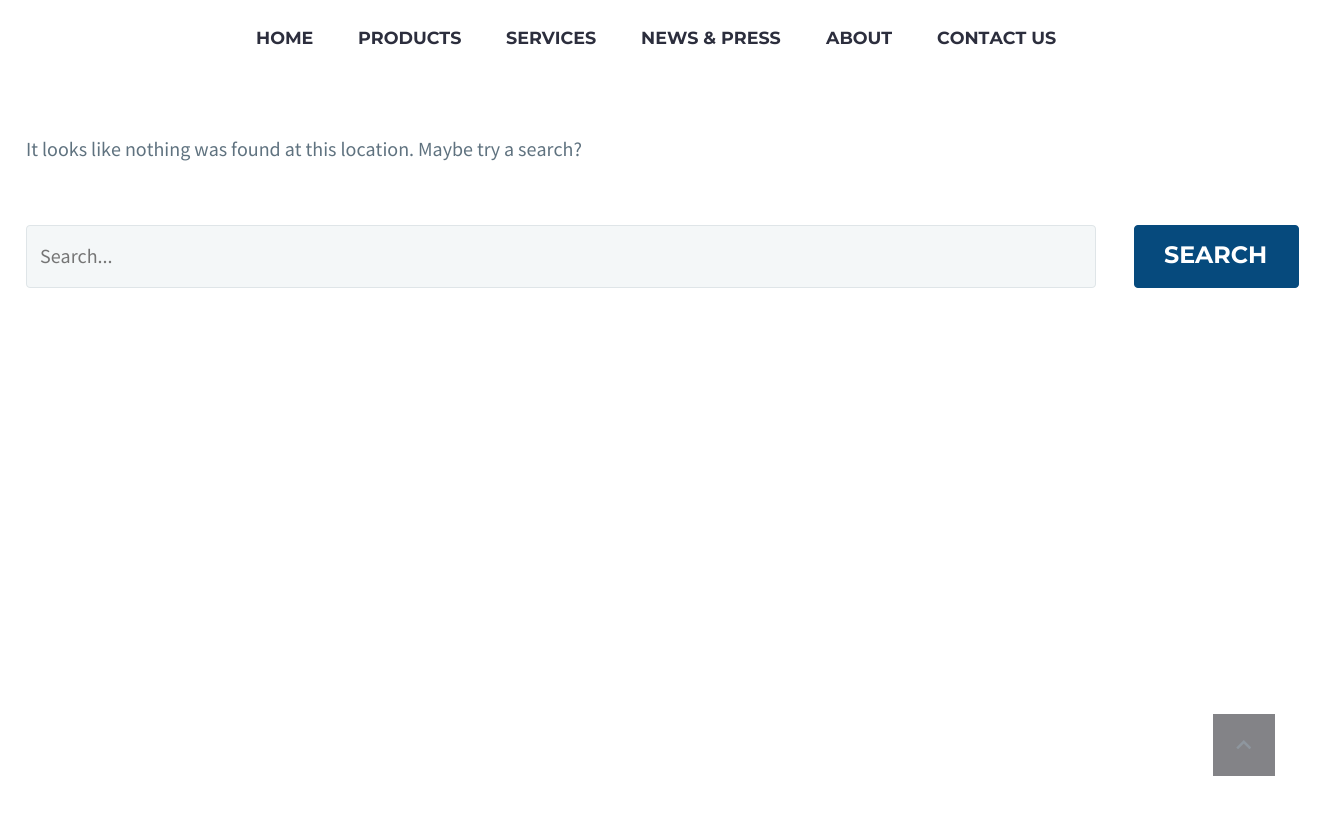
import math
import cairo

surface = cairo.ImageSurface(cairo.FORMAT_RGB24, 1324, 820)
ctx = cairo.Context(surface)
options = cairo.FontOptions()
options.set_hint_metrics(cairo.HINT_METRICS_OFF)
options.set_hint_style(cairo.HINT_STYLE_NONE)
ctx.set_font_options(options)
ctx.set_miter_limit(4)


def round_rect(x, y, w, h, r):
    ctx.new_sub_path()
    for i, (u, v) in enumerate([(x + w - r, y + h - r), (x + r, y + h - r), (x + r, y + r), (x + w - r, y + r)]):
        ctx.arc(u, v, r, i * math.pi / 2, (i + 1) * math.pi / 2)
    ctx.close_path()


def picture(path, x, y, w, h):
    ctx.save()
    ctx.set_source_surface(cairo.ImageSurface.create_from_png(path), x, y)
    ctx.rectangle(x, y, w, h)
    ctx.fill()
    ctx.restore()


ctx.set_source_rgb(1, 1, 1)
ctx.paint()
ctx.select_font_face("Montserrat", cairo.FONT_SLANT_NORMAL, cairo.FONT_WEIGHT_BOLD)
ctx.set_font_size(17.5)
ctx.set_source_rgb(0.173, 0.18, 0.239)
ctx.move_to(256, 44)
ctx.show_text("HOME")
ctx.move_to(358, 44)
ctx.show_text("PRODUCTS")
ctx.move_to(506, 44)
ctx.show_text("SERVICES")
ctx.move_to(641, 44)
ctx.show_text("NEWS & PRESS")
ctx.move_to(826, 44)
ctx.show_text("ABOUT")
ctx.move_to(937, 44)
ctx.show_text("CONTACT US")
ctx.select_font_face("Source Sans Pro")
ctx.set_font_size(20)
ctx.set_source_rgb(0.373, 0.447, 0.498)
ctx.move_to(26, 156)
ctx.show_text("It looks like nothing was found at this location. Maybe try a search?")
ctx.set_source_rgb(0.957, 0.965, 0.969)
round_rect(26.5, 225.5, 1069, 62, 3.5)
ctx.fill_preserve()
ctx.set_source_rgb(0.875, 0.898, 0.91)
ctx.set_line_width(1)
ctx.stroke()
ctx.set_source_rgb(0.459, 0.459, 0.459)
ctx.move_to(40, 263)
ctx.show_text("Search...")
ctx.set_source_rgb(0.024, 0.29, 0.49)
round_rect(1134, 225, 165, 63, 4)
ctx.fill()
ctx.select_font_face("Montserrat", cairo.FONT_SLANT_NORMAL, cairo.FONT_WEIGHT_BOLD)
ctx.set_font_size(23.75)
ctx.set_source_rgb(1, 1, 1)
ctx.move_to(1164, 263)
ctx.show_text("SEARCH")
ctx.set_source_rgb(0.514, 0.514, 0.529)
ctx.rectangle(1213, 714, 62, 62)
ctx.fill()
picture("img1.png", 1236, 740, 15, 9)
surface.write_to_png("page.png")
